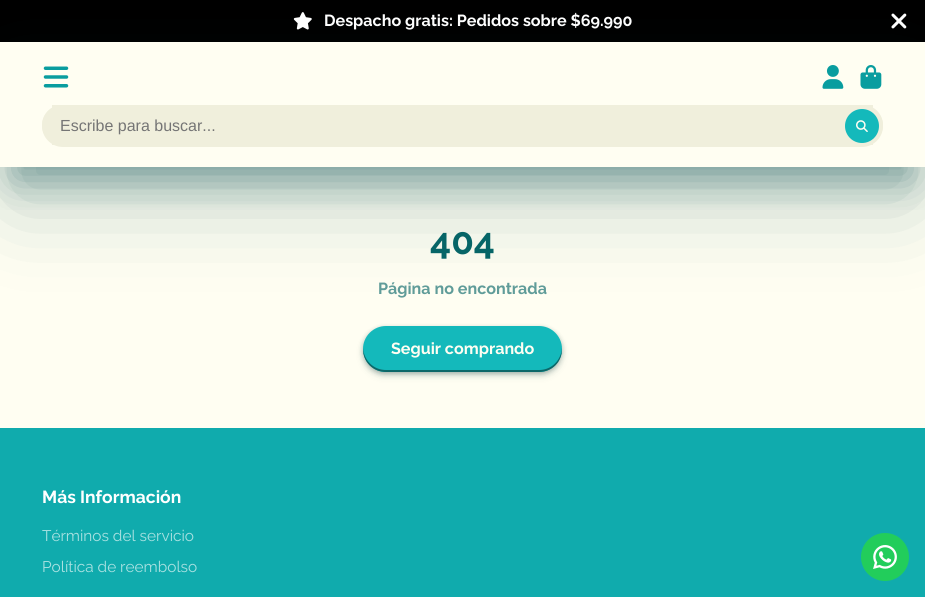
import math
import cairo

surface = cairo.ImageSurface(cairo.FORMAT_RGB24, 925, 597)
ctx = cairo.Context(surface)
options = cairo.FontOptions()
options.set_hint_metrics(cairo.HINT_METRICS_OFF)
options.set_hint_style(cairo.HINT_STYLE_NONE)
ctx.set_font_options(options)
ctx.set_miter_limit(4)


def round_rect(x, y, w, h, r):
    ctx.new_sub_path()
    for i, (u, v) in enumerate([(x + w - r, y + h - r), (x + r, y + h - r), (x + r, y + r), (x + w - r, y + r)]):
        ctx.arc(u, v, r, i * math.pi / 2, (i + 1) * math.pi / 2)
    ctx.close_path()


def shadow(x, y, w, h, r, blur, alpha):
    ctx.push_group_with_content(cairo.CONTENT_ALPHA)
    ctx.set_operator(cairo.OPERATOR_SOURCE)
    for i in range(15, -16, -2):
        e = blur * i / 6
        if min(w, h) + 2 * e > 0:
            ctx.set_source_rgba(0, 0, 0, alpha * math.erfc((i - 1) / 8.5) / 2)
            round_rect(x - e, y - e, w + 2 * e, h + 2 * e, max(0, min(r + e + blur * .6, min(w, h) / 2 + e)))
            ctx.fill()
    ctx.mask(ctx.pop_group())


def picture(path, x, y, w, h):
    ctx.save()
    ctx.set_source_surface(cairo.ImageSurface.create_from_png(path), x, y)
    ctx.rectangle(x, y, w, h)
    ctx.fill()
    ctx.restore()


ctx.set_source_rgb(1, 0.996, 0.949)
ctx.paint()
ctx.set_source_rgb(0, 0, 0)
ctx.rectangle(0, 0, 925, 42)
ctx.fill()
picture("img1.png", 293, 12, 19, 18)
ctx.select_font_face("Raleway", cairo.FONT_SLANT_NORMAL, cairo.FONT_WEIGHT_BOLD)
ctx.set_font_size(16.1)
ctx.set_source_rgb(1, 1, 1)
ctx.move_to(324, 26)
ctx.show_text("Despacho gratis: Pedidos sobre $69.990")
picture("img2.png", 891, 13, 16, 16)
ctx.save()
ctx.rectangle(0, 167, 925, 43)
ctx.clip()
ctx.set_source_rgb(0.02, 0.302, 0.31)
shadow(14, 82, 897, 97, 0, 19, 0.4)
ctx.restore()
ctx.set_source_rgb(0.024, 0.192, 0.192)
shadow(365, 333, 195, 41, 20.5, 5, 0.15)
shadow(363, 328, 199, 46, 23, 2.5, 0.3)
ctx.set_source_rgb(0.082, 0.725, 0.733)
round_rect(363, 326, 199, 46, 23)
ctx.fill()
ctx.save()
ctx.set_fill_rule(cairo.FILL_RULE_EVEN_ODD)
ctx.new_path()
ctx.move_to(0, 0)
ctx.line_to(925, 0)
ctx.line_to(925, 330)
ctx.line_to(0, 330)
ctx.close_path()
ctx.move_to(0, 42)
ctx.line_to(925, 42)
ctx.line_to(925, 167)
ctx.line_to(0, 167)
ctx.close_path()
ctx.clip()
ctx.set_source_rgb(0.02, 0.302, 0.31)
shadow(14, 100, 897, 97, 0, 44, 0.3)
ctx.restore()
picture("img3.png", 43, 66, 26, 22)
picture("img4.png", 822, 65, 22, 24)
picture("img5.png", 860, 65, 22, 24)
ctx.set_source_rgb(0.941, 0.937, 0.863)
round_rect(42, 105, 841, 40, 20)
ctx.fill()
ctx.rectangle(52, 105, 821, 40)
ctx.fill()
round_rect(42, 105, 841, 42, 21)
ctx.fill()
ctx.select_font_face("Liberation Sans")
ctx.set_font_size(16)
ctx.set_source_rgb(0.459, 0.459, 0.459)
ctx.move_to(60, 131)
ctx.show_text("Escribe para buscar...")
ctx.set_source_rgb(0.082, 0.725, 0.733)
ctx.new_path()
ctx.arc(862, 126, 17, 0, 2 * math.pi)
ctx.fill()
picture("img6.png", 856, 120, 12, 12)
ctx.select_font_face("Raleway", cairo.FONT_SLANT_NORMAL, cairo.FONT_WEIGHT_BOLD)
ctx.set_font_size(37)
ctx.set_source_rgb(0.024, 0.396, 0.404)
ctx.move_to(430, 254)
ctx.show_text("404")
ctx.set_font_size(16.1)
ctx.set_source_rgb(0.376, 0.612, 0.6)
ctx.move_to(378, 294)
ctx.show_text("Página no encontrada")
ctx.set_source_rgb(0.047, 0.404, 0.408)
ctx.new_path()
ctx.move_to(363, 348)
ctx.line_to(363, 349)
ctx.curve_to(363, 362, 373, 372, 386, 372)
ctx.line_to(539, 372)
ctx.curve_to(552, 372, 562, 362, 562, 349)
ctx.line_to(562, 348)
ctx.curve_to(561, 360, 552, 370, 539, 370)
ctx.line_to(386, 370)
ctx.curve_to(373, 370, 364, 360, 363, 348)
ctx.close_path()
ctx.fill()
ctx.set_source_rgb(1, 0.996, 0.949)
ctx.move_to(391, 354)
ctx.show_text("Seguir comprando")
ctx.set_source_rgb(0.063, 0.671, 0.678)
ctx.rectangle(0, 428, 925, 169)
ctx.fill()
ctx.set_font_size(17.5)
ctx.set_source_rgb(1, 1, 1)
ctx.move_to(42, 503)
ctx.show_text("Más Información")
ctx.select_font_face("Raleway Thin")
ctx.set_font_size(15.4)
ctx.set_source_rgb(0.663, 0.882, 0.882)
ctx.move_to(42, 541)
ctx.show_text("Términos del servicio")
ctx.move_to(42, 572)
ctx.show_text("Política de reembolso")
ctx.set_source_rgb(0.133, 0.804, 0.357)
ctx.new_path()
ctx.arc(885, 557, 24, 0, 2 * math.pi)
ctx.fill()
picture("img7.png", 873, 545, 24, 24)
surface.write_to_png("page.png")
